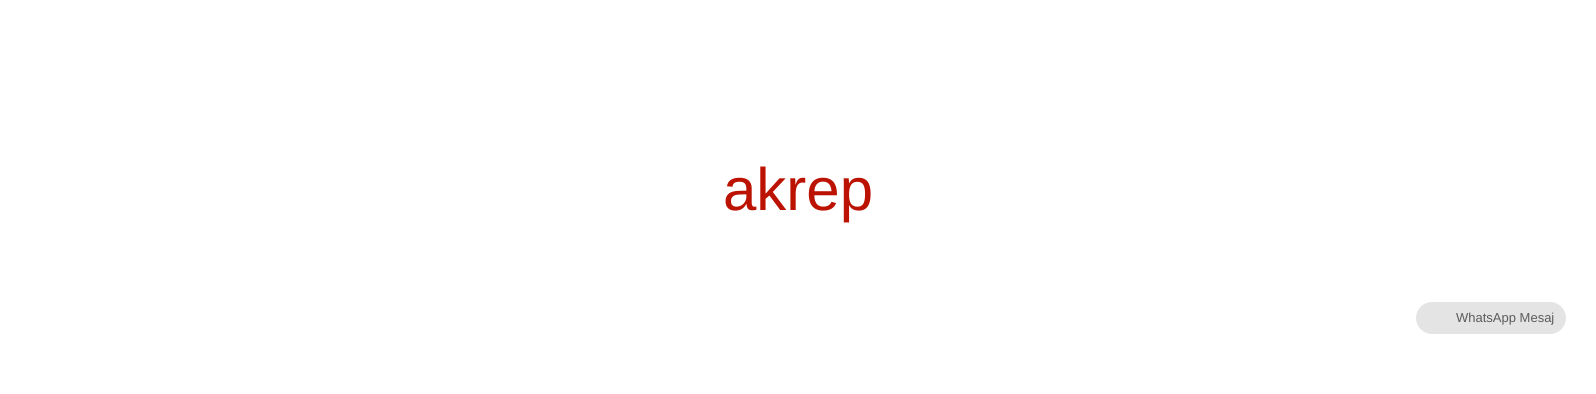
import math
import cairo

surface = cairo.ImageSurface(cairo.FORMAT_RGB24, 1596, 394)
ctx = cairo.Context(surface)
options = cairo.FontOptions()
options.set_hint_metrics(cairo.HINT_METRICS_OFF)
options.set_hint_style(cairo.HINT_STYLE_NONE)
ctx.set_font_options(options)
ctx.set_miter_limit(4)


def round_rect(x, y, w, h, r):
    ctx.new_sub_path()
    for i, (u, v) in enumerate([(x + w - r, y + h - r), (x + r, y + h - r), (x + r, y + r), (x + w - r, y + r)]):
        ctx.arc(u, v, r, i * math.pi / 2, (i + 1) * math.pi / 2)
    ctx.close_path()


ctx.set_source_rgb(1, 1, 1)
ctx.paint()
ctx.select_font_face("Liberation Sans")
ctx.set_font_size(60)
ctx.set_source_rgb(0.733, 0.071, 0.008)
ctx.move_to(723, 210)
ctx.show_text("akrep")
ctx.set_source_rgb(0.894, 0.894, 0.894)
round_rect(1416, 302, 150, 32, 16)
ctx.fill()
ctx.set_font_size(13)
ctx.set_source_rgb(0.357, 0.357, 0.357)
ctx.move_to(1456, 322)
ctx.show_text("WhatsApp Mesaj")
surface.write_to_png("page.png")
